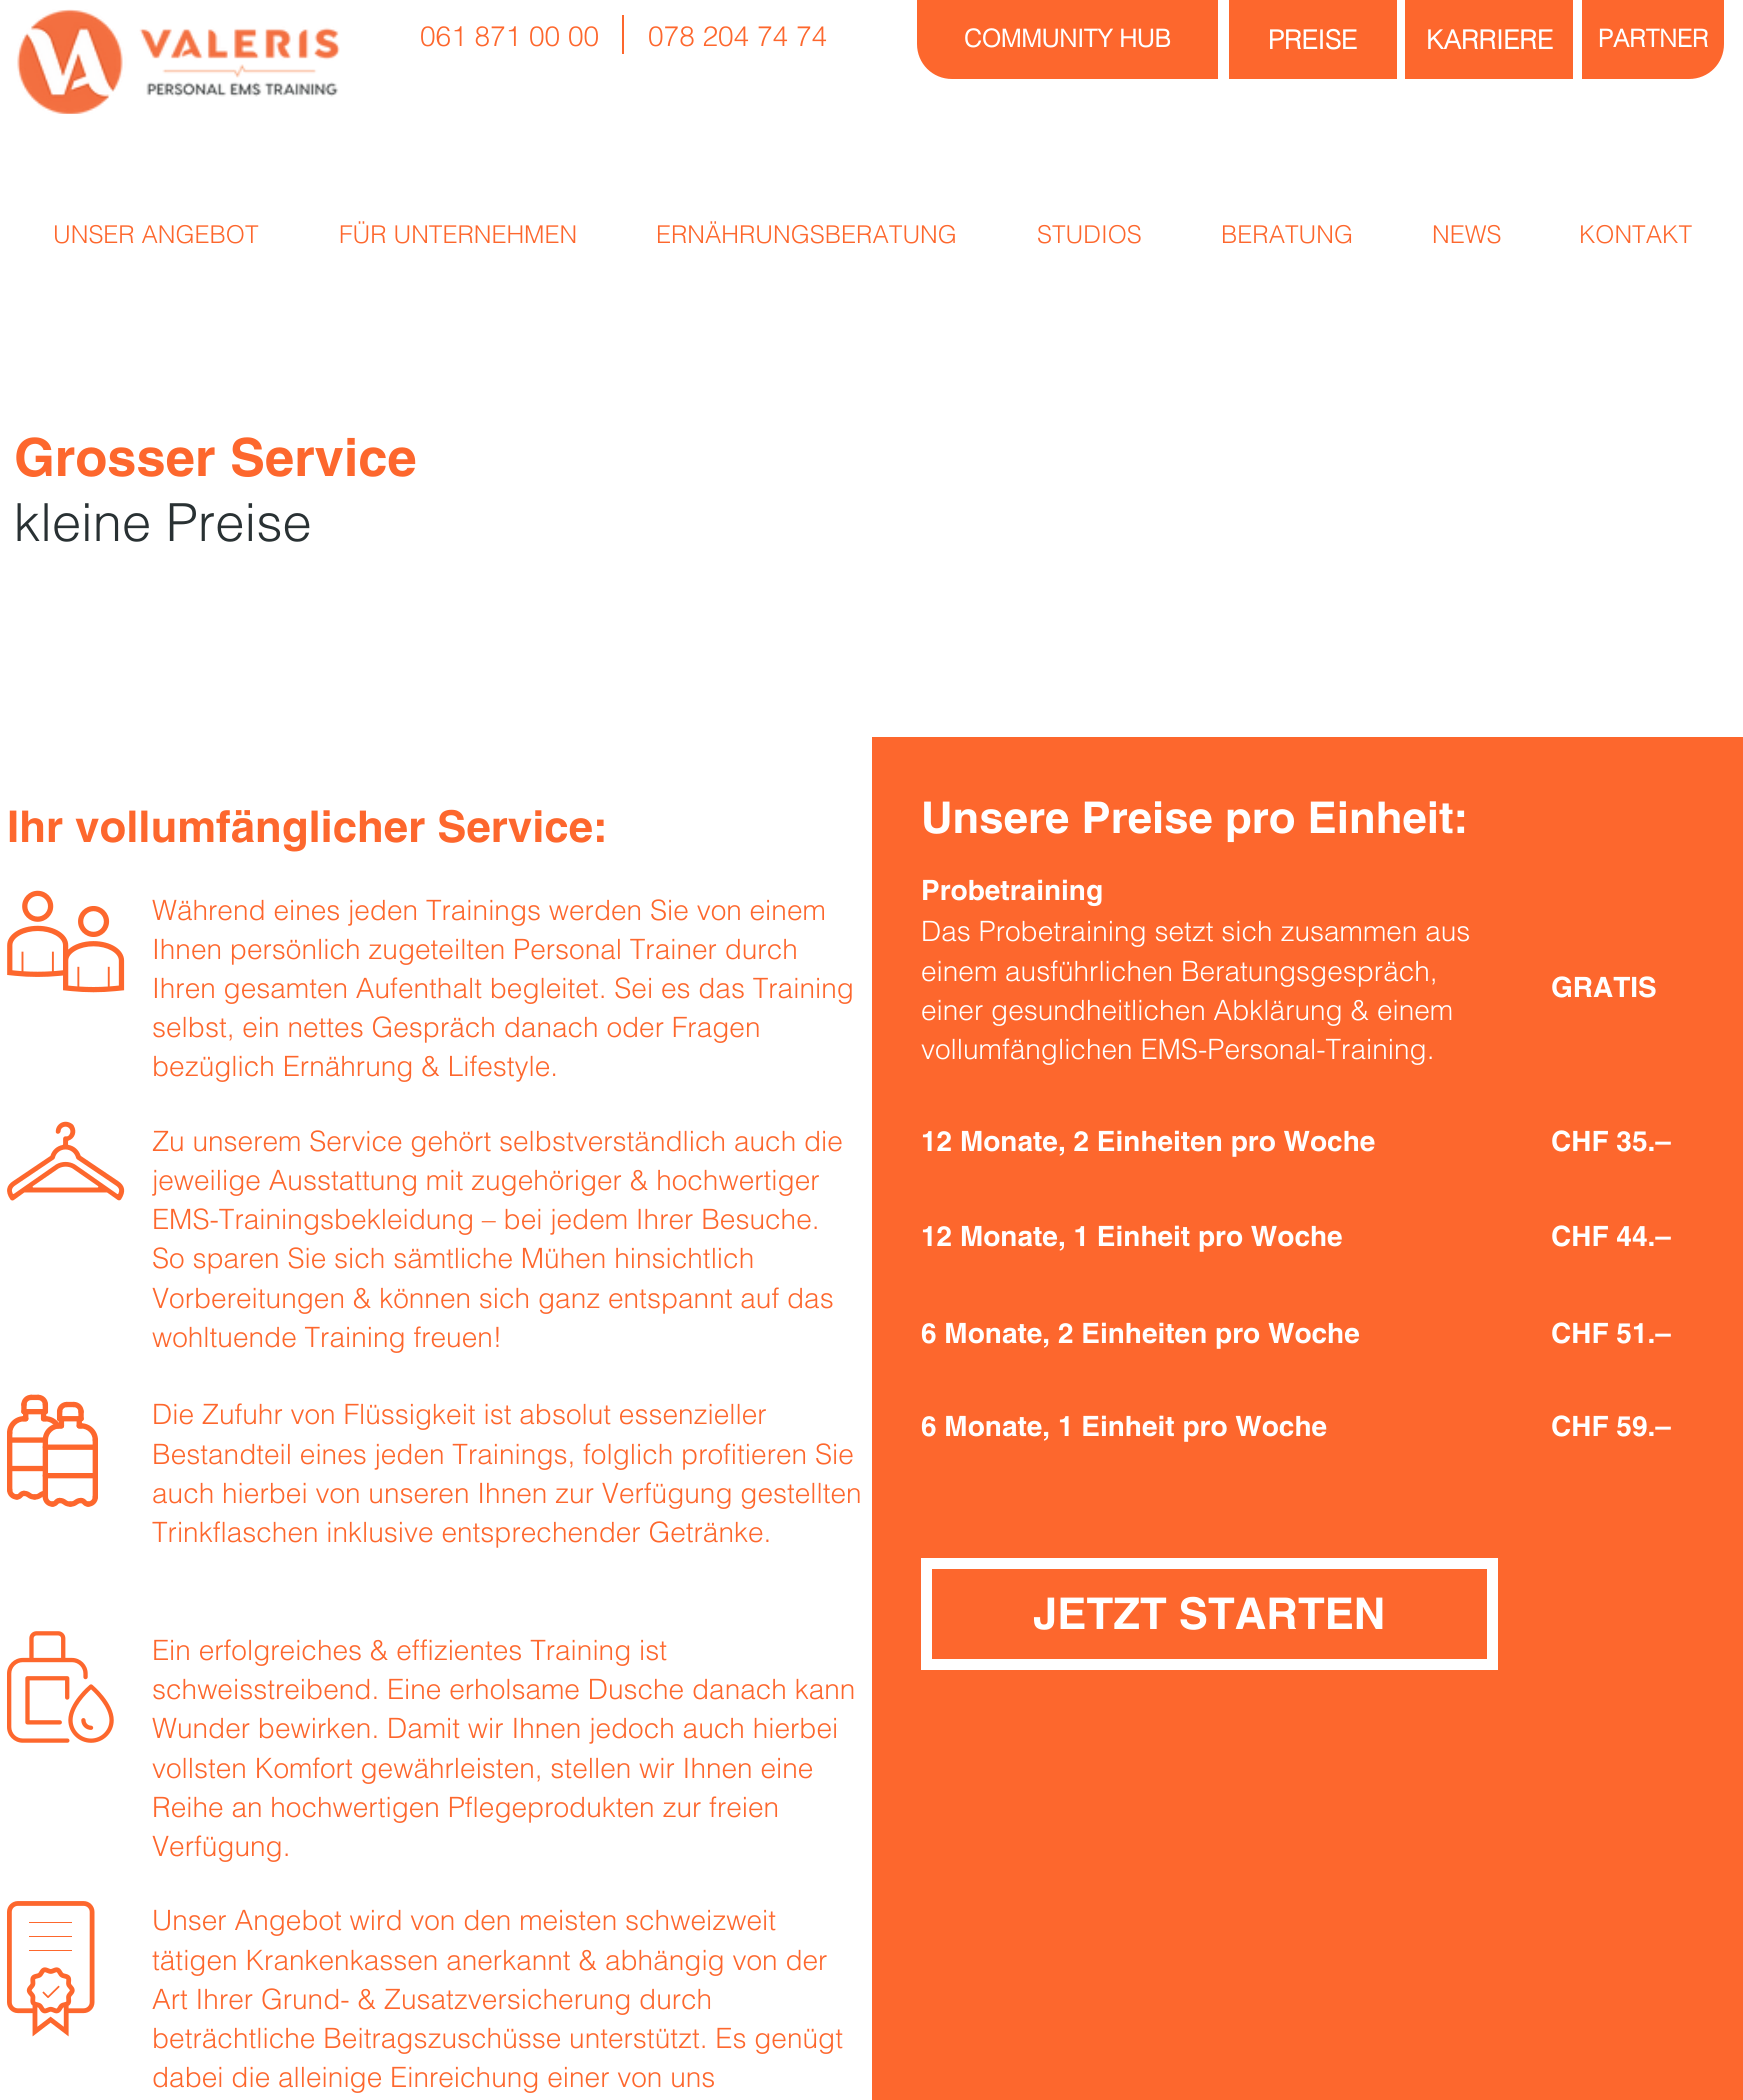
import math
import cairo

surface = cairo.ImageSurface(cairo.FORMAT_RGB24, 1743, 2100)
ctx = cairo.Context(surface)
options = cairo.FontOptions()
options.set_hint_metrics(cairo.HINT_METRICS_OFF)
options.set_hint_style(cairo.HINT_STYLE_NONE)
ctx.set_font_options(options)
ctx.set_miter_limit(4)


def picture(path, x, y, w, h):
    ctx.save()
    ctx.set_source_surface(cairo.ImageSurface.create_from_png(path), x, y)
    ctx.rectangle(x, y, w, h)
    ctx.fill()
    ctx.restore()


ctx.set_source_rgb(1, 1, 1)
ctx.paint()
picture("img1.png", 17, 9, 323, 105)
ctx.select_font_face("helvetica Light")
ctx.set_font_size(28)
ctx.set_source_rgb(0.992, 0.404, 0.176)
ctx.move_to(420, 46)
ctx.show_text("061 871 00 00")
ctx.rectangle(622, 15, 2, 39)
ctx.fill()
ctx.move_to(648, 46)
ctx.show_text("078 204 74 74")
ctx.new_path()
ctx.move_to(918, 1)
ctx.line_to(1217, 1)
ctx.line_to(1217, 78)
ctx.line_to(952, 78)
ctx.curve_to(933, 78, 918, 63, 918, 44)
ctx.close_path()
ctx.fill_preserve()
ctx.stroke()
ctx.select_font_face("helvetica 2", cairo.FONT_SLANT_NORMAL, cairo.FONT_WEIGHT_BOLD)
ctx.set_font_size(24.5)
ctx.set_source_rgb(1, 1, 1)
ctx.move_to(964, 47)
ctx.show_text("COMMUNITY HUB")
ctx.set_source_rgb(0.992, 0.404, 0.176)
ctx.rectangle(1229, 0, 168, 79)
ctx.fill()
ctx.set_font_size(26.25)
ctx.set_source_rgb(1, 1, 1)
ctx.move_to(1268, 49)
ctx.show_text("PREISE")
ctx.set_source_rgb(0.992, 0.404, 0.176)
ctx.rectangle(1405, 0, 168, 79)
ctx.fill()
ctx.set_source_rgb(1, 1, 1)
ctx.move_to(1426, 49)
ctx.show_text("KARRIERE")
ctx.set_source_rgb(0.992, 0.404, 0.176)
ctx.new_path()
ctx.move_to(1583, 1)
ctx.line_to(1723, 1)
ctx.line_to(1723, 44)
ctx.curve_to(1723, 63, 1708, 78, 1689, 78)
ctx.line_to(1583, 78)
ctx.close_path()
ctx.fill_preserve()
ctx.stroke()
ctx.set_font_size(24.5)
ctx.set_source_rgb(1, 1, 1)
ctx.move_to(1598, 47)
ctx.show_text("PARTNER")
ctx.select_font_face("helvetica Light")
ctx.set_source_rgb(0.992, 0.404, 0.176)
ctx.move_to(53, 243)
ctx.show_text("UNSER ANGEBOT")
ctx.move_to(339, 243)
ctx.show_text("FÜR UNTERNEHMEN")
ctx.move_to(656, 243)
ctx.show_text("ERNÄHRUNGSBERATUNG")
ctx.move_to(1037, 243)
ctx.show_text("STUDIOS")
ctx.move_to(1221, 243)
ctx.show_text("BERATUNG")
ctx.move_to(1432, 243)
ctx.show_text("NEWS")
ctx.move_to(1579, 243)
ctx.show_text("KONTAKT")
ctx.select_font_face("helvetica", cairo.FONT_SLANT_NORMAL, cairo.FONT_WEIGHT_BOLD)
ctx.set_font_size(52.5)
ctx.move_to(14, 476)
ctx.show_text("Grosser Service")
ctx.select_font_face("helvetica Light")
ctx.set_source_rgb(0.161, 0.192, 0.2)
ctx.move_to(14, 541)
ctx.show_text("kleine Preise")
ctx.select_font_face("helvetica", cairo.FONT_SLANT_NORMAL, cairo.FONT_WEIGHT_BOLD)
ctx.set_font_size(43.75)
ctx.set_source_rgb(0.992, 0.404, 0.176)
ctx.move_to(7, 842)
ctx.show_text("Ihr vollumfänglicher Service:")
picture("img2.png", 7, 890, 118, 103)
ctx.select_font_face("helvetica Light")
ctx.set_font_size(28)
ctx.move_to(152, 920)
ctx.show_text("Während eines jeden Trainings werden Sie von einem")
ctx.move_to(152, 959)
ctx.show_text("Ihnen persönlich zugeteilten Personal Trainer durch")
ctx.move_to(152, 998)
ctx.show_text("Ihren gesamten Aufenthalt begleitet. Sei es das Training")
ctx.move_to(152, 1037)
ctx.show_text("selbst, ein nettes Gespräch danach oder Fragen")
ctx.move_to(152, 1076)
ctx.show_text("bezüglich Ernährung & Lifestyle.")
picture("img3.png", 7, 1121, 118, 80)
ctx.move_to(152, 1151)
ctx.show_text("Zu unserem Service gehört selbstverständlich auch die")
ctx.move_to(152, 1190)
ctx.show_text("jeweilige Ausstattung mit zugehöriger & hochwertiger")
ctx.move_to(152, 1229)
ctx.show_text("EMS-Trainingsbekleidung – bei jedem Ihrer Besuche.")
ctx.move_to(152, 1268)
ctx.show_text("So sparen Sie sich sämtliche Mühen hinsichtlich")
ctx.move_to(152, 1308)
ctx.show_text("Vorbereitungen & können sich ganz entspannt auf das")
ctx.move_to(152, 1347)
ctx.show_text("wohltuende Training freuen!")
picture("img4.png", 7, 1394, 91, 113)
ctx.move_to(152, 1424)
ctx.show_text("Die Zufuhr von Flüssigkeit ist absolut essenzieller")
ctx.move_to(152, 1464)
ctx.show_text("Bestandteil eines jeden Trainings, folglich profitieren Sie")
ctx.move_to(152, 1503)
ctx.show_text("auch hierbei von unseren Ihnen zur Verfügung gestellten")
ctx.move_to(152, 1542)
ctx.show_text("Trinkflaschen inklusive entsprechender Getränke.")
picture("img5.png", 7, 1631, 107, 112)
ctx.move_to(152, 1660)
ctx.show_text("Ein erfolgreiches & effizientes Training ist")
ctx.move_to(152, 1699)
ctx.show_text("schweisstreibend. Eine erholsame Dusche danach kann")
ctx.move_to(152, 1738)
ctx.show_text("Wunder bewirken. Damit wir Ihnen jedoch auch hierbei")
ctx.move_to(152, 1778)
ctx.show_text("vollsten Komfort gewährleisten, stellen wir Ihnen eine")
ctx.move_to(152, 1817)
ctx.show_text("Reihe an hochwertigen Pflegeprodukten zur freien")
ctx.move_to(152, 1856)
ctx.show_text("Verfügung.")
picture("img6.png", 7, 1901, 88, 136)
ctx.move_to(152, 1930)
ctx.show_text("Unser Angebot wird von den meisten schweizweit")
ctx.move_to(152, 1970)
ctx.show_text("tätigen Krankenkassen anerkannt & abhängig von der")
ctx.move_to(152, 2009)
ctx.show_text("Art Ihrer Grund- & Zusatzversicherung durch")
ctx.move_to(152, 2048)
ctx.show_text("beträchtliche Beitragszuschüsse unterstützt. Es genügt")
ctx.move_to(152, 2087)
ctx.show_text("dabei die alleinige Einreichung einer von uns")
ctx.rectangle(872, 737, 871, 1363)
ctx.fill()
ctx.select_font_face("helvetica", cairo.FONT_SLANT_NORMAL, cairo.FONT_WEIGHT_BOLD)
ctx.set_font_size(43.75)
ctx.set_source_rgb(1, 1, 1)
ctx.move_to(921, 833)
ctx.show_text("Unsere Preise pro Einheit:")
ctx.set_font_size(28)
ctx.move_to(921, 900)
ctx.show_text("Probetraining")
ctx.select_font_face("helvetica Light")
ctx.move_to(921, 941)
ctx.show_text("Das Probetraining setzt sich zusammen aus")
ctx.move_to(921, 981)
ctx.show_text("einem ausführlichen Beratungsgespräch,")
ctx.move_to(921, 1020)
ctx.show_text("einer gesundheitlichen Abklärung & einem")
ctx.move_to(921, 1059)
ctx.show_text("vollumfänglichen EMS-Personal-Training.")
ctx.select_font_face("helvetica", cairo.FONT_SLANT_NORMAL, cairo.FONT_WEIGHT_BOLD)
ctx.move_to(1551, 997)
ctx.show_text("GRATIS")
ctx.move_to(921, 1151)
ctx.show_text("12 Monate, 2 Einheiten pro Woche")
ctx.move_to(1551, 1151)
ctx.show_text("CHF 35.–")
ctx.move_to(921, 1246)
ctx.show_text("12 Monate, 1 Einheit pro Woche")
ctx.move_to(1551, 1246)
ctx.show_text("CHF 44.–")
ctx.move_to(921, 1343)
ctx.show_text("6 Monate, 2 Einheiten pro Woche")
ctx.move_to(1551, 1343)
ctx.show_text("CHF 51.–")
ctx.move_to(921, 1436)
ctx.show_text("6 Monate, 1 Einheit pro Woche")
ctx.move_to(1551, 1436)
ctx.show_text("CHF 59.–")
ctx.rectangle(926.5, 1563.5, 566, 101)
ctx.set_line_width(11)
ctx.stroke()
ctx.set_font_size(43.75)
ctx.move_to(1033, 1629)
ctx.show_text("JETZT STARTEN")
surface.write_to_png("page.png")
